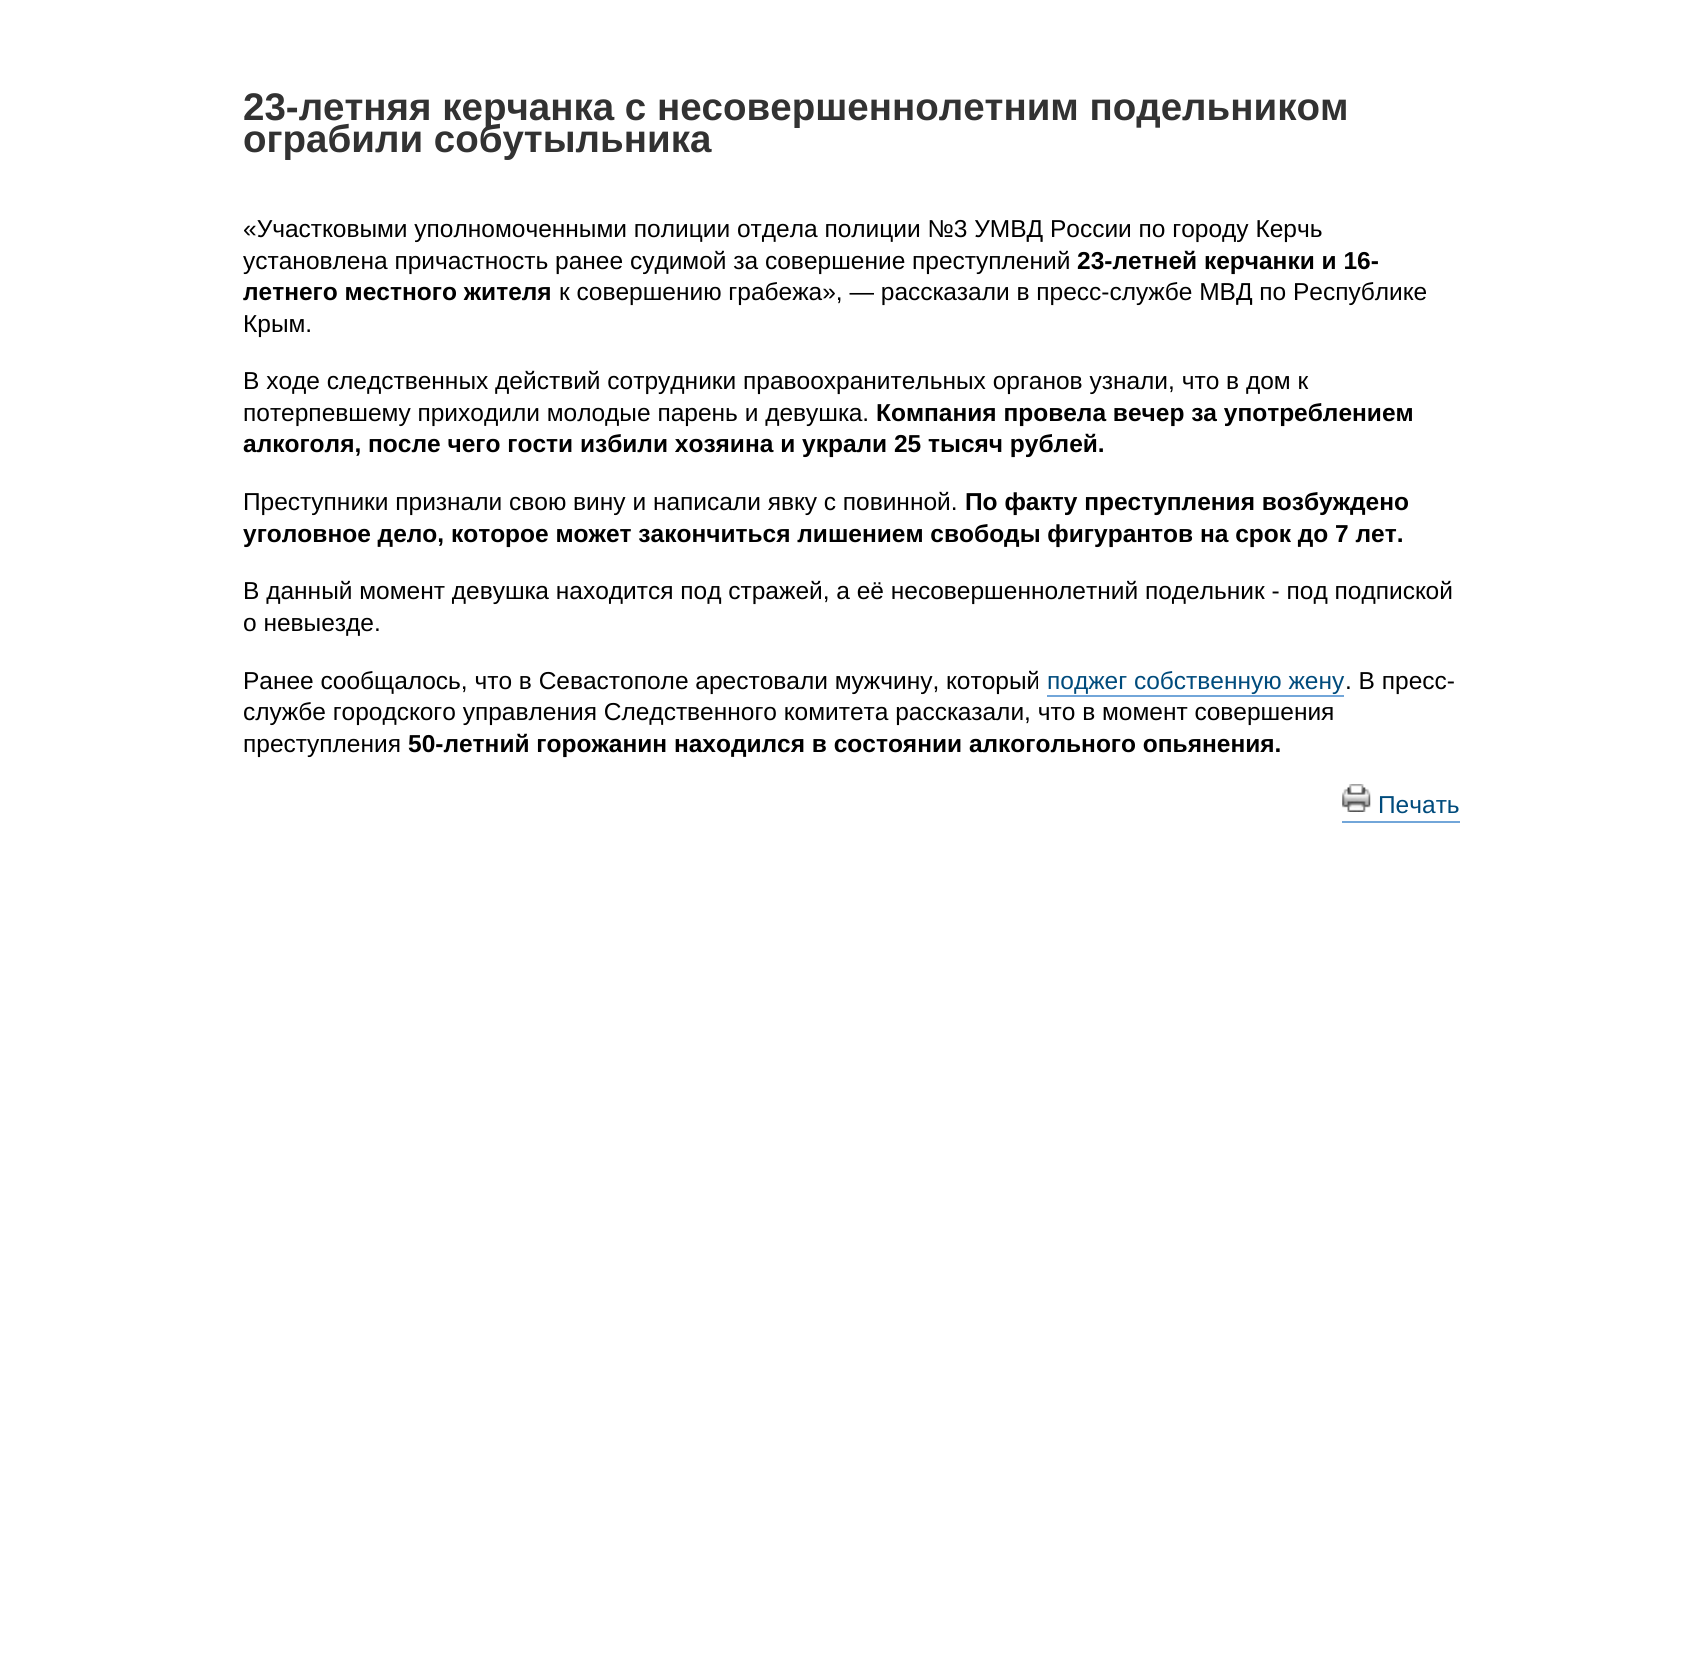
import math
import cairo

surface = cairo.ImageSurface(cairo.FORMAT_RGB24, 1702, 1666)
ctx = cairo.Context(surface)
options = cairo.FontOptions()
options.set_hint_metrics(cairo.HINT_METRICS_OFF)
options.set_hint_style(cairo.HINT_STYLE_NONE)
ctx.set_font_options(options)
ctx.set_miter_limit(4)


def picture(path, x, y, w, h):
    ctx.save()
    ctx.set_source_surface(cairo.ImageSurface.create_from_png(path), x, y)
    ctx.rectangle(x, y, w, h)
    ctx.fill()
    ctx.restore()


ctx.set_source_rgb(1, 1, 1)
ctx.paint()
ctx.select_font_face("Liberation Sans", cairo.FONT_SLANT_NORMAL, cairo.FONT_WEIGHT_BOLD)
ctx.set_font_size(38.5)
ctx.set_source_rgb(0.196, 0.196, 0.196)
ctx.move_to(243, 120)
ctx.show_text("23-летняя керчанка с несовершеннолетним подельником")
ctx.move_to(243, 152)
ctx.show_text("ограбили собутыльника")
ctx.select_font_face("Liberation Sans")
ctx.set_font_size(24.5)
ctx.set_source_rgb(0, 0, 0)
ctx.move_to(243, 237)
ctx.show_text("«Участковыми уполномоченными полиции отдела полиции №3 УМВД России по городу Керчь")
ctx.move_to(243, 269)
ctx.show_text("установлена причастность ранее судимой за совершение преступлений")
ctx.select_font_face("Liberation Sans", cairo.FONT_SLANT_NORMAL, cairo.FONT_WEIGHT_BOLD)
ctx.move_to(1077, 269)
ctx.show_text("23-летней керчанки и 16-")
ctx.move_to(243, 300)
ctx.show_text("летнего местного жителя")
ctx.select_font_face("Liberation Sans")
ctx.move_to(559, 300)
ctx.show_text("к совершению грабежа», — рассказали в пресс-службе МВД по Республике")
ctx.move_to(243, 332)
ctx.show_text("Крым.")
ctx.move_to(243, 389)
ctx.show_text("В ходе следственных действий сотрудники правоохранительных органов узнали, что в дом к")
ctx.move_to(243, 421)
ctx.show_text("потерпевшему приходили молодые парень и девушка.")
ctx.select_font_face("Liberation Sans", cairo.FONT_SLANT_NORMAL, cairo.FONT_WEIGHT_BOLD)
ctx.move_to(876, 421)
ctx.show_text("Компания провела вечер за употреблением")
ctx.move_to(243, 452)
ctx.show_text("алкоголя, после чего гости избили хозяина и украли 25 тысяч рублей.")
ctx.select_font_face("Liberation Sans")
ctx.move_to(243, 510)
ctx.show_text("Преступники признали свою вину и написали явку с повинной.")
ctx.select_font_face("Liberation Sans", cairo.FONT_SLANT_NORMAL, cairo.FONT_WEIGHT_BOLD)
ctx.move_to(965, 510)
ctx.show_text("По факту преступления возбуждено")
ctx.move_to(243, 542)
ctx.show_text("уголовное дело, которое может закончиться лишением свободы фигурантов на срок до 7 лет.")
ctx.select_font_face("Liberation Sans")
ctx.move_to(243, 599)
ctx.show_text("В данный момент девушка находится под стражей, а её несовершеннолетний подельник - под подпиской")
ctx.move_to(243, 631)
ctx.show_text("о невыезде.")
ctx.move_to(243, 689)
ctx.show_text("Ранее сообщалось, что в Севастополе арестовали мужчину, который")
ctx.set_source_rgb(0, 0.294, 0.486)
ctx.move_to(1047, 689)
ctx.show_text("поджег собственную жену")
ctx.set_source_rgb(0.447, 0.651, 0.851)
ctx.rectangle(1047, 695, 297, 2)
ctx.fill()
ctx.set_source_rgb(0, 0, 0)
ctx.move_to(1345, 689)
ctx.show_text(". В пресс-")
ctx.move_to(243, 720)
ctx.show_text("службе городского управления Следственного комитета рассказали, что в момент совершения")
ctx.move_to(243, 752)
ctx.show_text("преступления")
ctx.select_font_face("Liberation Sans", cairo.FONT_SLANT_NORMAL, cairo.FONT_WEIGHT_BOLD)
ctx.move_to(408, 752)
ctx.show_text("50-летний горожанин находился в состоянии алкогольного опьянения.")
ctx.set_source_rgb(0.447, 0.651, 0.851)
ctx.rectangle(1342, 821, 118, 2)
ctx.fill()
picture("img1.png", 1342, 784, 29, 28)
ctx.select_font_face("Liberation Sans")
ctx.set_source_rgb(0, 0.294, 0.486)
ctx.move_to(1378, 813)
ctx.show_text("Печать")
surface.write_to_png("page.png")
